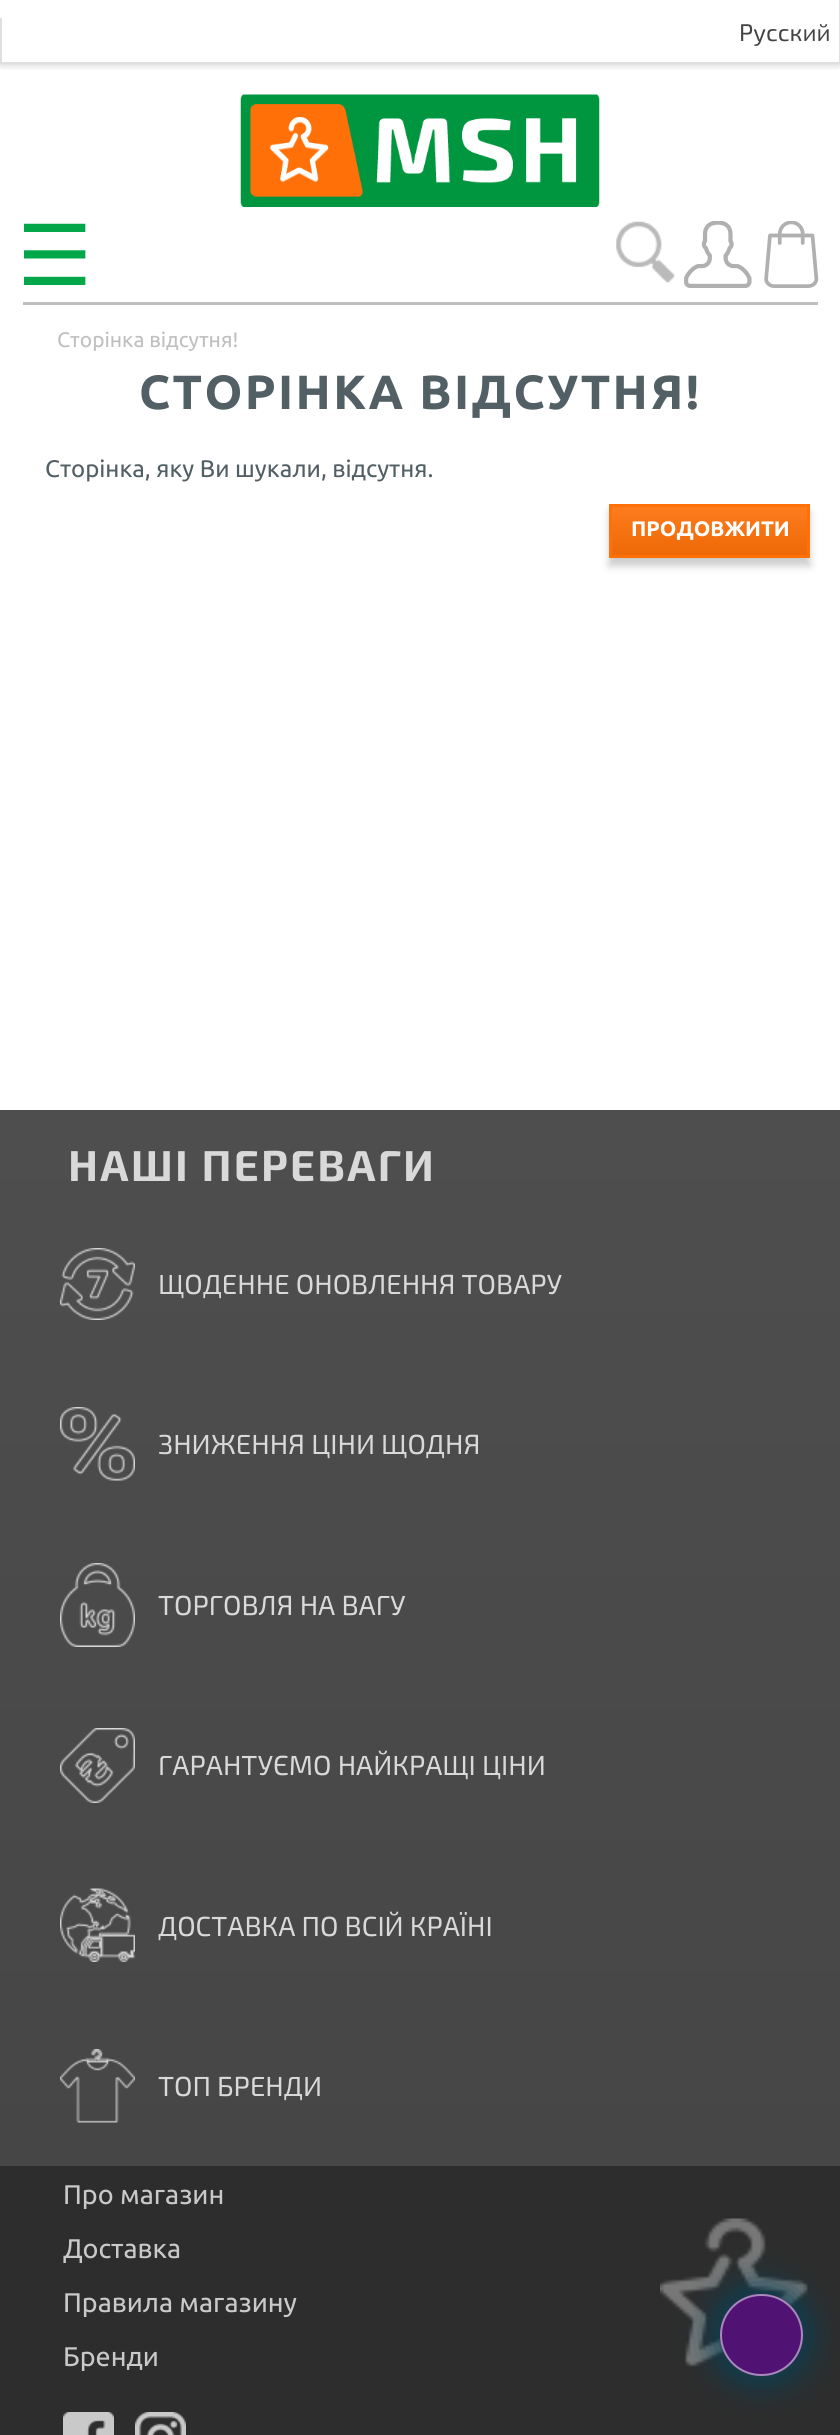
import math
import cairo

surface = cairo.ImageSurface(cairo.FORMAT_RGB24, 840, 2435)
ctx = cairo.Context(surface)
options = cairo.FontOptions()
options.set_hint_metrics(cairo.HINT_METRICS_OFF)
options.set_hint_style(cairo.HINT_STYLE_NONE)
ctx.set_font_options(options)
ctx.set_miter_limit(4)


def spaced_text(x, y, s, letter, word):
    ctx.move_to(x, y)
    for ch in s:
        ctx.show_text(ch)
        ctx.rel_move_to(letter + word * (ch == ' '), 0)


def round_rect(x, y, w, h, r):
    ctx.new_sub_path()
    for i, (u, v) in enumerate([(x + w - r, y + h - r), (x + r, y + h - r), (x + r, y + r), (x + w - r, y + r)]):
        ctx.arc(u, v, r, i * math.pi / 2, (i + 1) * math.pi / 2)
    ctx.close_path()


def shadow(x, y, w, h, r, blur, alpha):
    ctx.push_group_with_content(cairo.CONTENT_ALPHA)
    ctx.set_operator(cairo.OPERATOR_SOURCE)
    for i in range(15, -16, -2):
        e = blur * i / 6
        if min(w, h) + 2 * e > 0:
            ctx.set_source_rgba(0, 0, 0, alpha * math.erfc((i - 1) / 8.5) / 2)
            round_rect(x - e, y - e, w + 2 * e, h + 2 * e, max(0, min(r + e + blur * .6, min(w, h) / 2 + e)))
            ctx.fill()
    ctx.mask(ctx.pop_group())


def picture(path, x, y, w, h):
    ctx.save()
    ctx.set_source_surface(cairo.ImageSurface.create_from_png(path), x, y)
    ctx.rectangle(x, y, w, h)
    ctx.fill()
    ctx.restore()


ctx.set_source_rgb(1, 1, 1)
ctx.paint()
ctx.save()
ctx.rectangle(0, 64, 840, 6)
ctx.clip()
ctx.set_source_rgb(0.275, 0.275, 0.259)
shadow(0, 0, 840, 63, 0, 4.5, 0.4)
ctx.restore()
ctx.set_source_rgb(0.875, 0.875, 0.875)
ctx.rectangle(839, 0, 1, 63)
ctx.fill()
ctx.rectangle(0, 62, 840, 2)
ctx.fill()
ctx.rectangle(0, 18, 2, 45)
ctx.fill()
ctx.select_font_face("Exo 2")
ctx.set_font_size(24)
ctx.set_source_rgb(0.267, 0.267, 0.267)
ctx.move_to(739, 41)
ctx.show_text("Русский")
picture("img1.png", 240, 94, 360, 113)
ctx.select_font_face("DejaVu Sans")
ctx.set_font_size(84)
ctx.set_source_rgb(0.004, 0.655, 0.282)
ctx.move_to(17, 285)
ctx.show_text("☰")
picture("img2.png", 616, 221, 60, 62)
picture("img3.png", 684, 221, 68, 67)
picture("img4.png", 764, 221, 55, 67)
ctx.set_source_rgb(0.749, 0.749, 0.749)
ctx.rectangle(23, 302, 795, 3)
ctx.fill()
ctx.select_font_face("Ubuntu")
ctx.set_font_size(21)
ctx.move_to(57, 347)
ctx.show_text("Сторінка відсутня!")
ctx.select_font_face("Ubuntu", cairo.FONT_SLANT_NORMAL, cairo.FONT_WEIGHT_BOLD)
ctx.set_font_size(48)
ctx.set_source_rgb(0.322, 0.376, 0.4)
spaced_text(139, 409, "СТОРІНКА ВІДСУТНЯ!", 2.4, 0)
ctx.select_font_face("Ubuntu")
ctx.set_font_size(24)
ctx.move_to(45, 477)
ctx.show_text("Сторінка, яку Ви шукали, відсутня.")
ctx.set_source_rgb(0, 0, 0)
shadow(609, 512, 201, 54, 0, 4, 0.2)
gradient = cairo.LinearGradient(710, 555, 710, 507)
gradient.add_color_stop_rgba(0, 0.933, 0.412, 0.027, 1)
gradient.add_color_stop_rgba(1, 0.992, 0.486, 0.114, 1)
ctx.set_source(gradient)
ctx.rectangle(612, 507, 195, 48)
ctx.fill()
ctx.rectangle(610.5, 505.5, 198, 51)
ctx.set_source_rgb(1, 0.443, 0.031)
ctx.set_line_width(3)
ctx.stroke()
ctx.select_font_face("Ubuntu", cairo.FONT_SLANT_NORMAL, cairo.FONT_WEIGHT_BOLD)
ctx.set_font_size(21)
ctx.set_source_rgb(1, 1, 1)
ctx.move_to(631, 536)
ctx.show_text("ПРОДОВЖИТИ")
gradient = cairo.LinearGradient(420, 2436, 420, 1110)
gradient.add_color_stop_rgba(0.01, 0.267, 0.267, 0.267, 1)
gradient.add_color_stop_rgba(1, 0.306, 0.306, 0.306, 1)
ctx.set_source(gradient)
ctx.rectangle(0, 1110, 840, 1056)
ctx.fill()
ctx.select_font_face("Exo 2", cairo.FONT_SLANT_NORMAL, cairo.FONT_WEIGHT_BOLD)
ctx.set_font_size(43.25)
ctx.set_source_rgb(0.851, 0.851, 0.851)
spaced_text(68, 1181, "НАШІ ПЕРЕВАГИ", 2.2, 0)
picture("img5.png", 60, 1248, 75, 72)
ctx.select_font_face("Exo 2")
ctx.set_font_size(27.6)
ctx.move_to(158, 1294)
ctx.show_text("ЩОДЕННЕ ОНОВЛЕННЯ ТОВАРУ")
picture("img6.png", 60, 1407, 75, 74)
ctx.move_to(158, 1454)
ctx.show_text("ЗНИЖЕННЯ ЦІНИ ЩОДНЯ")
picture("img7.png", 60, 1563, 75, 84)
ctx.move_to(158, 1615)
ctx.show_text("ТОРГОВЛЯ НА ВАГУ")
picture("img8.png", 60, 1728, 75, 75)
ctx.move_to(158, 1775)
ctx.show_text("ГАРАНТУЄМО НАЙКРАЩІ ЦІНИ")
picture("img9.png", 60, 1888, 75, 74)
ctx.move_to(158, 1936)
ctx.show_text("ДОСТАВКА ПО ВСІЙ КРАЇНІ")
picture("img10.png", 60, 2049, 75, 74)
ctx.move_to(158, 2096)
ctx.show_text("ТОП БРЕНДИ")
ctx.set_source_rgb(0.176, 0.176, 0.176)
ctx.rectangle(0, 2166, 840, 269)
ctx.fill()
ctx.select_font_face("Ubuntu")
ctx.set_font_size(27)
ctx.set_source_rgb(0.788, 0.788, 0.788)
ctx.move_to(63, 2204)
ctx.show_text("Про магазин")
ctx.move_to(63, 2258)
ctx.show_text("Доставка")
picture("img11.png", 660, 2218, 148, 149)
ctx.move_to(63, 2312)
ctx.show_text("Правила магазину")
ctx.move_to(63, 2366)
ctx.show_text("Бренди")
picture("img12.png", 63, 2412, 51, 23)
picture("img13.png", 135, 2412, 51, 23)
round_rect(721, 2295, 81, 80, 40)
ctx.set_source_rgb(0.314, 0.071, 0.451)
ctx.set_line_width(2)
ctx.stroke()
ctx.set_source_rgb(0.004, 0.259, 0.349)
shadow(710, 2283, 103, 104, 51.5, 15, 0.75)
ctx.set_source_rgb(0.314, 0.071, 0.451)
round_rect(720, 2294, 83, 82, 41)
ctx.fill()
round_rect(721, 2295, 81, 80, 40)
ctx.set_source_rgba(1, 1, 1, 0.5)
ctx.stroke()
surface.write_to_png("page.png")
